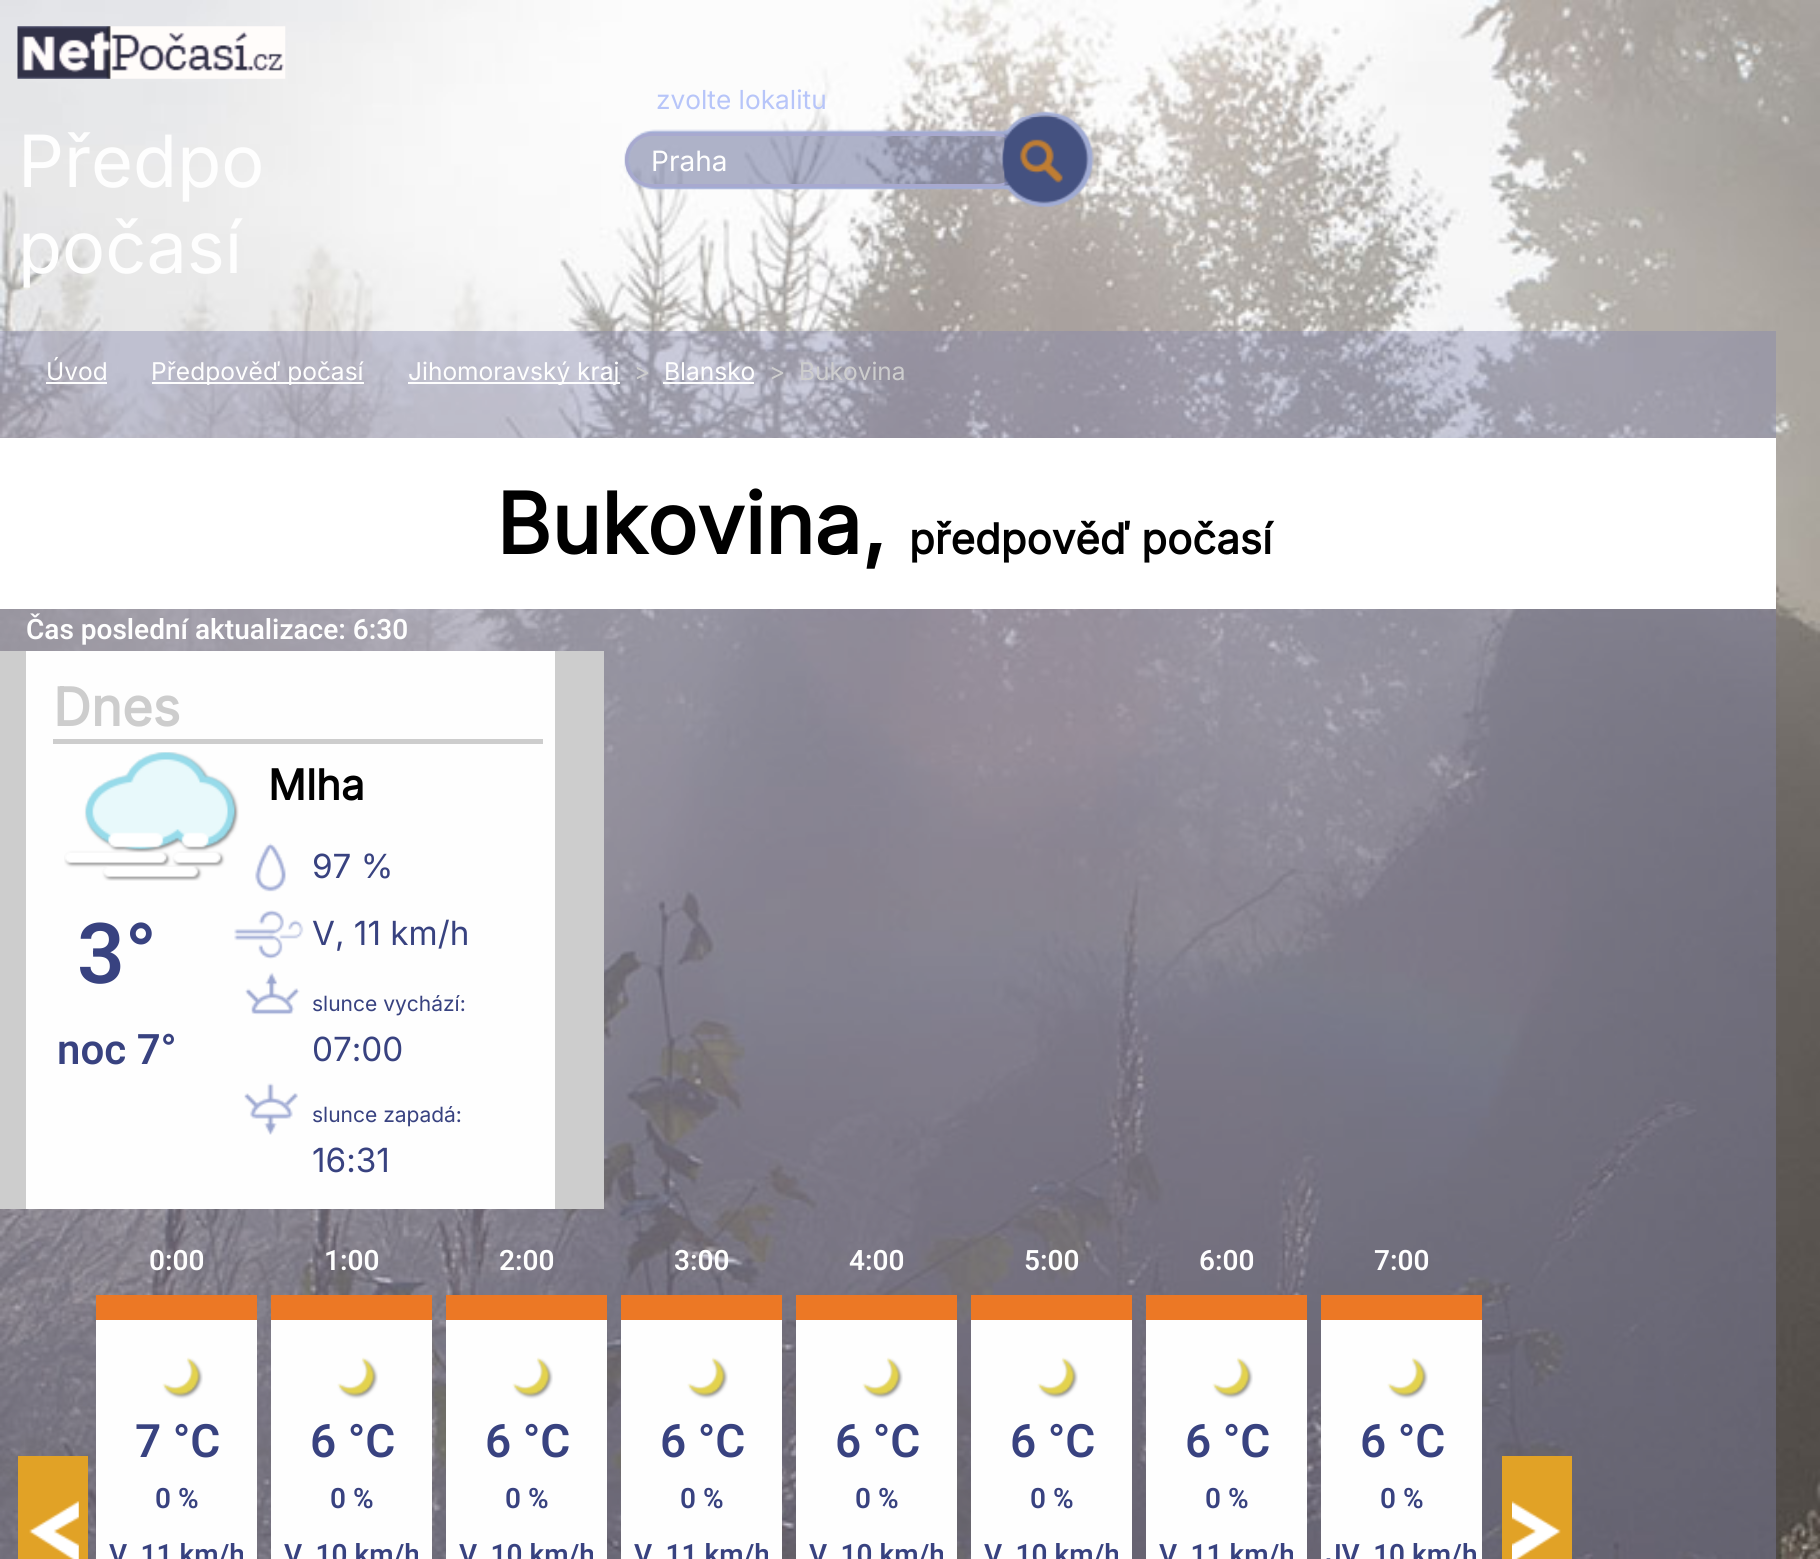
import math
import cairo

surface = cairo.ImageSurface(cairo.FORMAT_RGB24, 1820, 1559)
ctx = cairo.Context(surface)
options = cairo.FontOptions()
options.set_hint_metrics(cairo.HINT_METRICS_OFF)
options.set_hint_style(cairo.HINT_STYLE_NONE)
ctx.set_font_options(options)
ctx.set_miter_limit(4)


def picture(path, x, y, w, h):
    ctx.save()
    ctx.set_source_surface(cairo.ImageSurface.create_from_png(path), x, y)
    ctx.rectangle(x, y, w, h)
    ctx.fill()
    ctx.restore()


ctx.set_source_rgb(1, 1, 1)
ctx.paint()
picture("img1.png", 0, 0, 1820, 1559)
picture("img2.png", 17, 26, 269, 53)
ctx.select_font_face("Inter")
ctx.set_font_size(72)
ctx.set_source_rgb(0.996, 0.996, 0.996)
ctx.move_to(18, 187)
ctx.show_text("Předpo")
ctx.move_to(18, 273)
ctx.show_text("počasí")
ctx.set_font_size(26.25)
ctx.set_source_rgb(0.718, 0.773, 0.976)
ctx.move_to(656, 109)
ctx.show_text("zvolte lokalitu")
picture("img3.png", 624, 111, 470, 96)
ctx.set_source_rgb(0.659, 0.663, 0.812)
ctx.set_fill_rule(cairo.FILL_RULE_EVEN_ODD)
ctx.new_path()
ctx.move_to(652, 133)
ctx.line_to(995, 133)
ctx.curve_to(1010, 133, 1022, 145, 1022, 160)
ctx.curve_to(1022, 175, 1010, 187, 995, 187)
ctx.line_to(652, 187)
ctx.curve_to(637, 187, 625, 175, 625, 160)
ctx.curve_to(625, 145, 637, 133, 652, 133)
ctx.close_path()
ctx.move_to(652, 136)
ctx.line_to(995, 136)
ctx.curve_to(1010, 136, 1022, 147, 1022, 160)
ctx.curve_to(1022, 173, 1010, 184, 995, 184)
ctx.line_to(652, 184)
ctx.curve_to(639, 184, 628, 173, 628, 160)
ctx.curve_to(628, 147, 639, 136, 652, 136)
ctx.close_path()
ctx.fill()
ctx.set_font_size(28)
ctx.set_source_rgb(0.996, 0.996, 0.996)
ctx.move_to(651, 171)
ctx.show_text("Praha")
picture("img4.png", 1004, 117, 87, 90)
ctx.set_source_rgba(0.51, 0.525, 0.678, 0.4)
ctx.rectangle(0, 331, 1776, 1228)
ctx.fill()
ctx.set_font_size(24.5)
ctx.set_source_rgb(0.996, 0.996, 0.996)
ctx.move_to(46, 380)
ctx.show_text("Úvod")
ctx.rectangle(46, 382, 61, 2)
ctx.fill()
ctx.rectangle(152, 382, 212, 2)
ctx.fill()
ctx.move_to(151, 380)
ctx.show_text("Předpověď počasí")
ctx.rectangle(408, 382, 212, 2)
ctx.fill()
ctx.move_to(408, 380)
ctx.show_text("Jihomoravský kraj")
ctx.set_source_rgb(0.804, 0.804, 0.804)
ctx.move_to(634, 380)
ctx.show_text(">")
ctx.set_source_rgb(0.996, 0.996, 0.996)
ctx.move_to(664, 380)
ctx.show_text("Blansko")
ctx.rectangle(663, 382, 91, 2)
ctx.fill()
ctx.set_source_rgb(0.804, 0.804, 0.804)
ctx.move_to(769, 380)
ctx.show_text(">")
ctx.move_to(799, 380)
ctx.show_text("Bukovina")
ctx.set_source_rgb(1, 1, 1)
ctx.rectangle(0, 438, 1776, 171)
ctx.fill()
ctx.select_font_face("Inter", cairo.FONT_SLANT_NORMAL, cairo.FONT_WEIGHT_BOLD)
ctx.set_font_size(84)
ctx.set_source_rgb(0, 0, 0)
ctx.move_to(496, 554)
ctx.show_text("Bukovina,")
ctx.set_font_size(42)
ctx.move_to(909, 554)
ctx.show_text("předpověď počasí")
ctx.select_font_face("Heebo SemiBold")
ctx.set_font_size(28)
ctx.set_source_rgb(0.996, 0.996, 0.996)
ctx.move_to(26, 639)
ctx.show_text("Čas poslední aktualizace: 6:30")
ctx.rectangle(26, 651, 529, 558)
ctx.fill()
ctx.set_source_rgb(0.804, 0.804, 0.804)
ctx.rectangle(0, 651, 26, 558)
ctx.fill()
ctx.select_font_face("Inter", cairo.FONT_SLANT_NORMAL, cairo.FONT_WEIGHT_BOLD)
ctx.set_font_size(52.5)
ctx.move_to(53, 726)
ctx.show_text("Dnes")
ctx.rectangle(555, 651, 49, 558)
ctx.fill()
ctx.rectangle(53, 739, 490, 5)
ctx.fill()
picture("img5.png", 64, 752, 175, 129)
ctx.select_font_face("Heebo SemiBold")
ctx.set_font_size(84)
ctx.set_source_rgb(0.22, 0.259, 0.502)
ctx.move_to(77, 983)
ctx.show_text("3°")
ctx.set_font_size(42)
ctx.move_to(57, 1064)
ctx.show_text("noc 7°")
ctx.select_font_face("Inter", cairo.FONT_SLANT_NORMAL, cairo.FONT_WEIGHT_BOLD)
ctx.set_source_rgb(0, 0, 0)
ctx.move_to(268, 800)
ctx.show_text("Mlha")
picture("img6.png", 255, 843, 31, 49)
ctx.select_font_face("Inter")
ctx.set_font_size(33.25)
ctx.set_source_rgb(0.22, 0.259, 0.502)
ctx.move_to(312, 878)
ctx.show_text("97 %")
picture("img7.png", 234, 910, 70, 49)
ctx.move_to(312, 945)
ctx.show_text("V, 11 km/h")
picture("img8.png", 245, 972, 55, 43)
ctx.set_font_size(21)
ctx.move_to(312, 1011)
ctx.show_text("slunce vychází:")
ctx.set_font_size(33.25)
ctx.move_to(312, 1061)
ctx.show_text("07:00")
picture("img9.png", 244, 1083, 54, 52)
ctx.set_font_size(21)
ctx.move_to(312, 1122)
ctx.show_text("slunce zapadá:")
ctx.set_font_size(33.25)
ctx.move_to(312, 1172)
ctx.show_text("16:31")
ctx.set_source_rgb(0.882, 0.635, 0.149)
ctx.rectangle(18, 1456, 70, 103)
ctx.fill()
picture("img10.png", 29, 1501, 50, 58)
ctx.select_font_face("Heebo SemiBold")
ctx.set_font_size(28)
ctx.set_source_rgb(0.996, 0.996, 0.996)
ctx.move_to(149, 1270)
ctx.show_text("0:00")
ctx.set_source_rgb(0.922, 0.471, 0.145)
ctx.rectangle(96, 1295, 161, 25)
ctx.fill()
ctx.set_source_rgb(0.996, 0.996, 0.996)
ctx.rectangle(96, 1320, 161, 239)
ctx.fill()
picture("img11.png", 162, 1357, 41, 42)
ctx.set_font_size(46)
ctx.set_source_rgb(0.22, 0.259, 0.502)
ctx.move_to(135, 1457)
ctx.show_text("7 °C")
ctx.set_font_size(28)
ctx.move_to(155, 1508)
ctx.show_text("0 %")
ctx.move_to(109, 1564)
ctx.show_text("V, 11 km/h")
ctx.set_source_rgb(0.996, 0.996, 0.996)
ctx.move_to(324, 1270)
ctx.show_text("1:00")
ctx.set_source_rgb(0.922, 0.471, 0.145)
ctx.rectangle(271, 1295, 161, 25)
ctx.fill()
ctx.set_source_rgb(0.996, 0.996, 0.996)
ctx.rectangle(271, 1320, 161, 239)
ctx.fill()
picture("img11.png", 337, 1357, 41, 42)
ctx.set_font_size(46)
ctx.set_source_rgb(0.22, 0.259, 0.502)
ctx.move_to(310, 1457)
ctx.show_text("6 °C")
ctx.set_font_size(28)
ctx.move_to(330, 1508)
ctx.show_text("0 %")
ctx.move_to(284, 1564)
ctx.show_text("V, 10 km/h")
ctx.set_source_rgb(0.996, 0.996, 0.996)
ctx.move_to(499, 1270)
ctx.show_text("2:00")
ctx.set_source_rgb(0.922, 0.471, 0.145)
ctx.rectangle(446, 1295, 161, 25)
ctx.fill()
ctx.set_source_rgb(0.996, 0.996, 0.996)
ctx.rectangle(446, 1320, 161, 239)
ctx.fill()
picture("img11.png", 512, 1357, 41, 42)
ctx.set_font_size(46)
ctx.set_source_rgb(0.22, 0.259, 0.502)
ctx.move_to(485, 1457)
ctx.show_text("6 °C")
ctx.set_font_size(28)
ctx.move_to(505, 1508)
ctx.show_text("0 %")
ctx.move_to(459, 1564)
ctx.show_text("V, 10 km/h")
ctx.set_source_rgb(0.996, 0.996, 0.996)
ctx.move_to(674, 1270)
ctx.show_text("3:00")
ctx.set_source_rgb(0.922, 0.471, 0.145)
ctx.rectangle(621, 1295, 161, 25)
ctx.fill()
ctx.set_source_rgb(0.996, 0.996, 0.996)
ctx.rectangle(621, 1320, 161, 239)
ctx.fill()
picture("img11.png", 687, 1357, 41, 42)
ctx.set_font_size(46)
ctx.set_source_rgb(0.22, 0.259, 0.502)
ctx.move_to(660, 1457)
ctx.show_text("6 °C")
ctx.set_font_size(28)
ctx.move_to(680, 1508)
ctx.show_text("0 %")
ctx.move_to(634, 1564)
ctx.show_text("V, 11 km/h")
ctx.set_source_rgb(0.996, 0.996, 0.996)
ctx.move_to(849, 1270)
ctx.show_text("4:00")
ctx.set_source_rgb(0.922, 0.471, 0.145)
ctx.rectangle(796, 1295, 161, 25)
ctx.fill()
ctx.set_source_rgb(0.996, 0.996, 0.996)
ctx.rectangle(796, 1320, 161, 239)
ctx.fill()
picture("img11.png", 862, 1357, 41, 42)
ctx.set_font_size(46)
ctx.set_source_rgb(0.22, 0.259, 0.502)
ctx.move_to(835, 1457)
ctx.show_text("6 °C")
ctx.set_font_size(28)
ctx.move_to(855, 1508)
ctx.show_text("0 %")
ctx.move_to(809, 1564)
ctx.show_text("V, 10 km/h")
ctx.set_source_rgb(0.996, 0.996, 0.996)
ctx.move_to(1024, 1270)
ctx.show_text("5:00")
ctx.set_source_rgb(0.922, 0.471, 0.145)
ctx.rectangle(971, 1295, 161, 25)
ctx.fill()
ctx.set_source_rgb(0.996, 0.996, 0.996)
ctx.rectangle(971, 1320, 161, 239)
ctx.fill()
picture("img11.png", 1037, 1357, 41, 42)
ctx.set_font_size(46)
ctx.set_source_rgb(0.22, 0.259, 0.502)
ctx.move_to(1010, 1457)
ctx.show_text("6 °C")
ctx.set_font_size(28)
ctx.move_to(1030, 1508)
ctx.show_text("0 %")
ctx.move_to(984, 1564)
ctx.show_text("V, 10 km/h")
ctx.set_source_rgb(0.996, 0.996, 0.996)
ctx.move_to(1199, 1270)
ctx.show_text("6:00")
ctx.set_source_rgb(0.922, 0.471, 0.145)
ctx.rectangle(1146, 1295, 161, 25)
ctx.fill()
ctx.set_source_rgb(0.996, 0.996, 0.996)
ctx.rectangle(1146, 1320, 161, 239)
ctx.fill()
picture("img11.png", 1212, 1357, 41, 42)
ctx.set_font_size(46)
ctx.set_source_rgb(0.22, 0.259, 0.502)
ctx.move_to(1185, 1457)
ctx.show_text("6 °C")
ctx.set_font_size(28)
ctx.move_to(1205, 1508)
ctx.show_text("0 %")
ctx.move_to(1159, 1564)
ctx.show_text("V, 11 km/h")
ctx.set_source_rgb(0.996, 0.996, 0.996)
ctx.move_to(1374, 1270)
ctx.show_text("7:00")
ctx.set_source_rgb(0.922, 0.471, 0.145)
ctx.rectangle(1321, 1295, 161, 25)
ctx.fill()
ctx.set_source_rgb(0.996, 0.996, 0.996)
ctx.rectangle(1321, 1320, 161, 239)
ctx.fill()
picture("img11.png", 1387, 1357, 41, 42)
ctx.set_font_size(46)
ctx.set_source_rgb(0.22, 0.259, 0.502)
ctx.move_to(1360, 1457)
ctx.show_text("6 °C")
ctx.set_font_size(28)
ctx.move_to(1380, 1508)
ctx.show_text("0 %")
ctx.move_to(1326, 1564)
ctx.show_text("JV, 10 km/h")
ctx.set_source_rgb(0.882, 0.635, 0.149)
ctx.rectangle(1502, 1456, 70, 103)
ctx.fill()
picture("img12.png", 1512, 1501, 49, 58)
surface.write_to_png("page.png")
